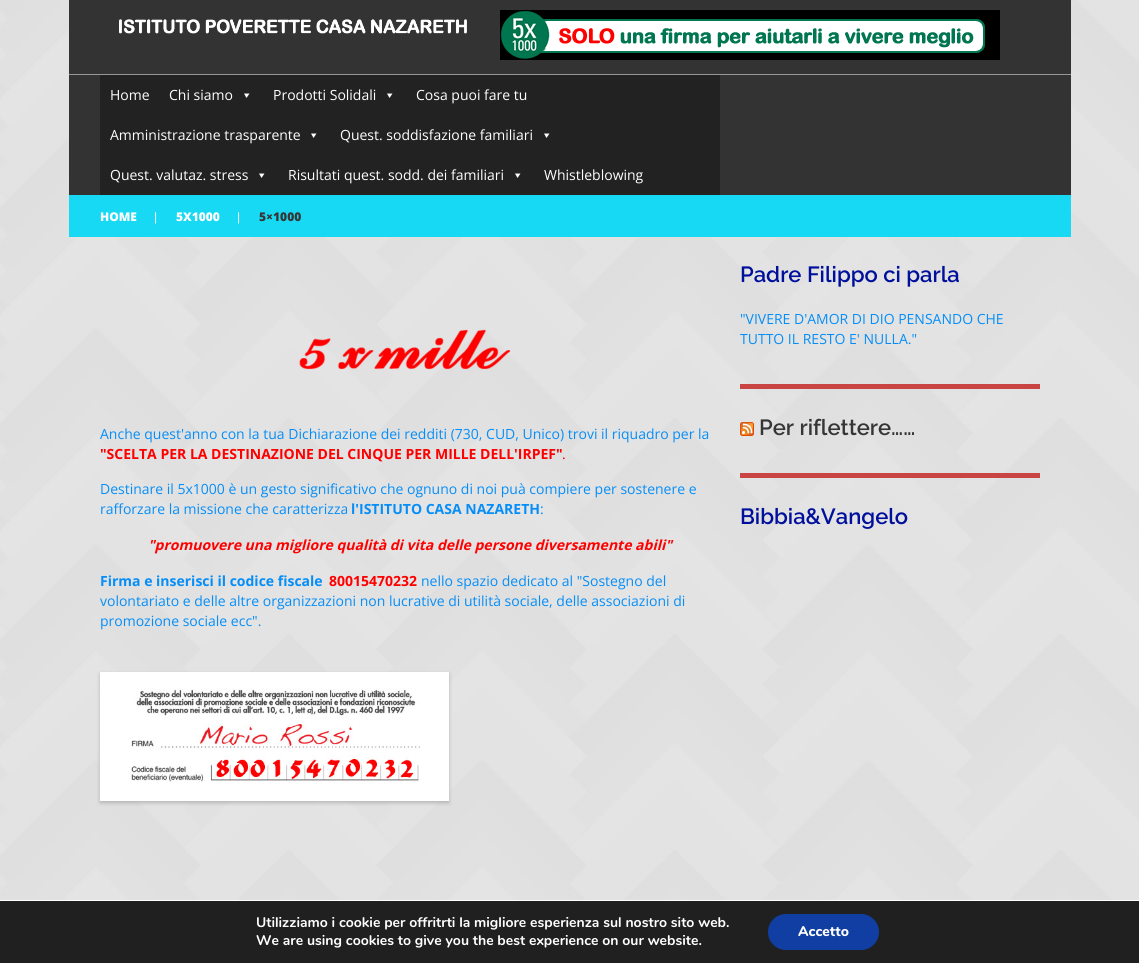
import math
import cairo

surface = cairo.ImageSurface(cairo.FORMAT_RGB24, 1139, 963)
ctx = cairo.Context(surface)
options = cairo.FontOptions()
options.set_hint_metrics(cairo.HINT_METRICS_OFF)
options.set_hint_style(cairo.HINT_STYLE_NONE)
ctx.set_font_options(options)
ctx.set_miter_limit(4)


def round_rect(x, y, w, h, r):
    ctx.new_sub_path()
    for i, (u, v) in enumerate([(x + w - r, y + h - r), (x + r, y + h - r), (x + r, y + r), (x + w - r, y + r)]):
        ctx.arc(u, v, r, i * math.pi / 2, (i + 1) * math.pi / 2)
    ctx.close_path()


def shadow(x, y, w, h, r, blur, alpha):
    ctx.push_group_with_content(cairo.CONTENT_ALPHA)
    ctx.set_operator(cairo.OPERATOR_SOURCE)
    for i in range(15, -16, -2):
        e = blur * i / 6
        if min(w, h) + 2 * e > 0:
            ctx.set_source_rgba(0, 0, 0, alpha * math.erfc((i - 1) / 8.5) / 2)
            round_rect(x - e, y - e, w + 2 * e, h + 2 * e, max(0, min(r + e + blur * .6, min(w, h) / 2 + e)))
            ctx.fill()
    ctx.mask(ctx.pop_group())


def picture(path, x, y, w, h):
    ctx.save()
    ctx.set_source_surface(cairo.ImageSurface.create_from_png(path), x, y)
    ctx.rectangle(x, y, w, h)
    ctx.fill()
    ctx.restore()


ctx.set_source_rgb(1, 1, 1)
ctx.paint()
picture("img1.png", 0, 0, 1139, 900)
ctx.set_source_rgb(0.2, 0.2, 0.2)
ctx.rectangle(69, 0, 31, 74)
ctx.fill()
ctx.rectangle(100, 0, 971, 74)
ctx.fill()
picture("img2.png", 119, 19, 348, 15)
picture("img3.png", 500, 10, 500, 50)
ctx.rectangle(69, 75, 31, 120)
ctx.fill()
ctx.set_source_rgb(0.592, 0.592, 0.592)
ctx.rectangle(69, 74, 31, 1)
ctx.fill()
ctx.set_source_rgb(0.2, 0.2, 0.2)
ctx.rectangle(720, 75, 351, 120)
ctx.fill()
ctx.set_source_rgb(0.592, 0.592, 0.592)
ctx.rectangle(100, 74, 971, 1)
ctx.fill()
ctx.set_source_rgb(0.133, 0.133, 0.133)
ctx.rectangle(100, 75, 620, 120)
ctx.fill()
ctx.select_font_face("Open Sans")
ctx.set_font_size(14)
ctx.set_source_rgb(1, 1, 1)
ctx.move_to(110, 100)
ctx.show_text("Home")
ctx.move_to(169, 100)
ctx.show_text("Chi siamo")
ctx.new_path()
ctx.move_to(249.5, 93.5)
ctx.line_to(246.5, 98)
ctx.line_to(244, 93.5)
ctx.close_path()
ctx.fill()
ctx.move_to(273, 100)
ctx.show_text("Prodotti Solidali")
ctx.new_path()
ctx.move_to(392.5, 93.5)
ctx.line_to(389.5, 98)
ctx.line_to(387, 93.5)
ctx.close_path()
ctx.fill()
ctx.move_to(416, 100)
ctx.show_text("Cosa puoi fare tu")
ctx.move_to(110, 140)
ctx.show_text("Amministrazione trasparente")
ctx.new_path()
ctx.move_to(316.5, 133.5)
ctx.line_to(313.5, 138)
ctx.line_to(311, 133.5)
ctx.close_path()
ctx.fill()
ctx.move_to(340, 140)
ctx.show_text("Quest. soddisfazione familiari")
ctx.new_path()
ctx.move_to(549.5, 133.5)
ctx.line_to(546.5, 138)
ctx.line_to(544, 133.5)
ctx.close_path()
ctx.fill()
ctx.move_to(110, 180)
ctx.show_text("Quest. valutaz. stress")
ctx.new_path()
ctx.move_to(264.5, 173.5)
ctx.line_to(261.5, 178)
ctx.line_to(259, 173.5)
ctx.close_path()
ctx.fill()
ctx.move_to(288, 180)
ctx.show_text("Risultati quest. sodd. dei familiari")
ctx.new_path()
ctx.move_to(520.5, 173.5)
ctx.line_to(517.5, 178)
ctx.line_to(515, 173.5)
ctx.close_path()
ctx.fill()
ctx.move_to(544, 180)
ctx.show_text("Whistleblowing")
ctx.set_source_rgb(0.09, 0.851, 0.957)
ctx.rectangle(69, 195, 31, 42)
ctx.fill()
ctx.rectangle(100, 195, 971, 42)
ctx.fill()
ctx.select_font_face("Open Sans ExtraBold")
ctx.set_font_size(12)
ctx.set_source_rgb(1, 1, 1)
ctx.move_to(100, 221)
ctx.show_text("HOME")
ctx.select_font_face("Liberation Sans")
ctx.move_to(154, 221)
ctx.show_text("|")
ctx.select_font_face("Open Sans ExtraBold")
ctx.move_to(176, 221)
ctx.show_text("5X1000")
ctx.select_font_face("Liberation Sans")
ctx.move_to(237, 221)
ctx.show_text("|")
ctx.select_font_face("Open Sans ExtraBold")
ctx.set_source_rgb(0.212, 0.212, 0.212)
ctx.move_to(259, 221)
ctx.show_text("5×1000")
picture("img4.png", 299, 329, 212, 41)
ctx.select_font_face("Open Sans")
ctx.set_font_size(14)
ctx.set_source_rgb(0.02, 0.557, 0.969)
ctx.move_to(100, 439)
ctx.show_text("Anche quest'anno con la tua Dichiarazione dei redditi (730, CUD, Unico) trovi il riquadro per la")
ctx.select_font_face("Open Sans", cairo.FONT_SLANT_NORMAL, cairo.FONT_WEIGHT_BOLD)
ctx.set_source_rgb(1, 0, 0)
ctx.move_to(100, 459)
ctx.show_text("\"SCELTA PER LA DESTINAZIONE DEL CINQUE PER MILLE DELL'IRPEF\"")
ctx.select_font_face("Open Sans")
ctx.move_to(562, 459)
ctx.show_text(".")
ctx.set_source_rgb(0.02, 0.557, 0.969)
ctx.move_to(100, 494)
ctx.show_text("Destinare il 5x1000 è un gesto significativo che ognuno di noi puà compiere per sostenere e")
ctx.move_to(100, 514)
ctx.show_text("rafforzare la missione che caratterizza")
ctx.select_font_face("Open Sans", cairo.FONT_SLANT_NORMAL, cairo.FONT_WEIGHT_BOLD)
ctx.move_to(351, 514)
ctx.show_text("l'ISTITUTO CASA NAZARETH")
ctx.select_font_face("Open Sans")
ctx.move_to(540, 514)
ctx.show_text(":")
ctx.select_font_face("Open Sans", cairo.FONT_SLANT_ITALIC, cairo.FONT_WEIGHT_BOLD)
ctx.set_source_rgb(1, 0, 0)
ctx.move_to(148, 550)
ctx.show_text("\"promuovere una migliore qualità di vita delle persone diversamente abili\"")
ctx.select_font_face("Open Sans", cairo.FONT_SLANT_NORMAL, cairo.FONT_WEIGHT_BOLD)
ctx.set_source_rgb(0.02, 0.557, 0.969)
ctx.move_to(100, 586)
ctx.show_text("Firma e inserisci il codice fiscale")
ctx.set_source_rgb(1, 0, 0)
ctx.move_to(329, 586)
ctx.show_text("80015470232")
ctx.select_font_face("Open Sans")
ctx.set_source_rgb(0.02, 0.557, 0.969)
ctx.move_to(421, 586)
ctx.show_text("nello spazio dedicato al \"Sostegno del")
ctx.move_to(100, 606)
ctx.show_text("volontariato e delle altre organizzazioni non lucrative di utilità sociale, delle associazioni di")
ctx.move_to(100, 626)
ctx.show_text("promozione sociale ecc\".")
ctx.set_source_rgb(0, 0, 0)
shadow(100, 674, 349, 129, 0, 2, 0.2)
ctx.set_source_rgb(1, 1, 1)
ctx.rectangle(100, 672, 349, 129)
ctx.fill()
picture("img5.png", 131, 688, 289, 94)
ctx.select_font_face("Raleway SemiBold")
ctx.set_font_size(22)
ctx.set_source_rgb(0, 0.063, 0.612)
ctx.move_to(740, 282)
ctx.show_text("Padre Filippo ci parla")
ctx.select_font_face("Open Sans")
ctx.set_font_size(14)
ctx.set_source_rgb(0.02, 0.557, 0.969)
ctx.move_to(740, 324)
ctx.show_text("\"VIVERE D'AMOR DI DIO PENSANDO CHE")
ctx.move_to(740, 344)
ctx.show_text("TUTTO IL RESTO E' NULLA.\"")
ctx.set_source_rgb(0.784, 0.271, 0.267)
ctx.rectangle(740, 384, 300, 5)
ctx.fill()
picture("img6.png", 740, 422, 14, 14)
ctx.select_font_face("Raleway SemiBold")
ctx.set_font_size(22)
ctx.set_source_rgb(0.212, 0.212, 0.212)
ctx.move_to(759, 435)
ctx.show_text("Per riflettere……")
ctx.set_source_rgb(0.784, 0.271, 0.267)
ctx.rectangle(740, 473, 300, 5)
ctx.fill()
ctx.set_source_rgb(0, 0.063, 0.612)
ctx.move_to(740, 524)
ctx.show_text("Bibbia&Vangelo")
ctx.set_source_rgb(0.125, 0.125, 0.125)
ctx.rectangle(0, 901, 1139, 62)
ctx.fill()
ctx.select_font_face("Nunito", cairo.FONT_SLANT_NORMAL, cairo.FONT_WEIGHT_BOLD)
ctx.set_font_size(14)
ctx.set_source_rgb(1, 1, 1)
ctx.move_to(256, 927)
ctx.show_text("Utilizziamo i cookie per offritrti la migliore esperienza sul nostro sito web.")
ctx.move_to(256, 945)
ctx.show_text("We are using cookies to give you the best experience on our website.")
ctx.set_source_rgb(0.063, 0.243, 0.635)
round_rect(768, 914, 111, 36, 18)
ctx.fill()
ctx.select_font_face("Nunito ExtraBold")
ctx.set_source_rgb(1, 1, 1)
ctx.move_to(798, 936)
ctx.show_text("Accetto")
surface.write_to_png("page.png")
